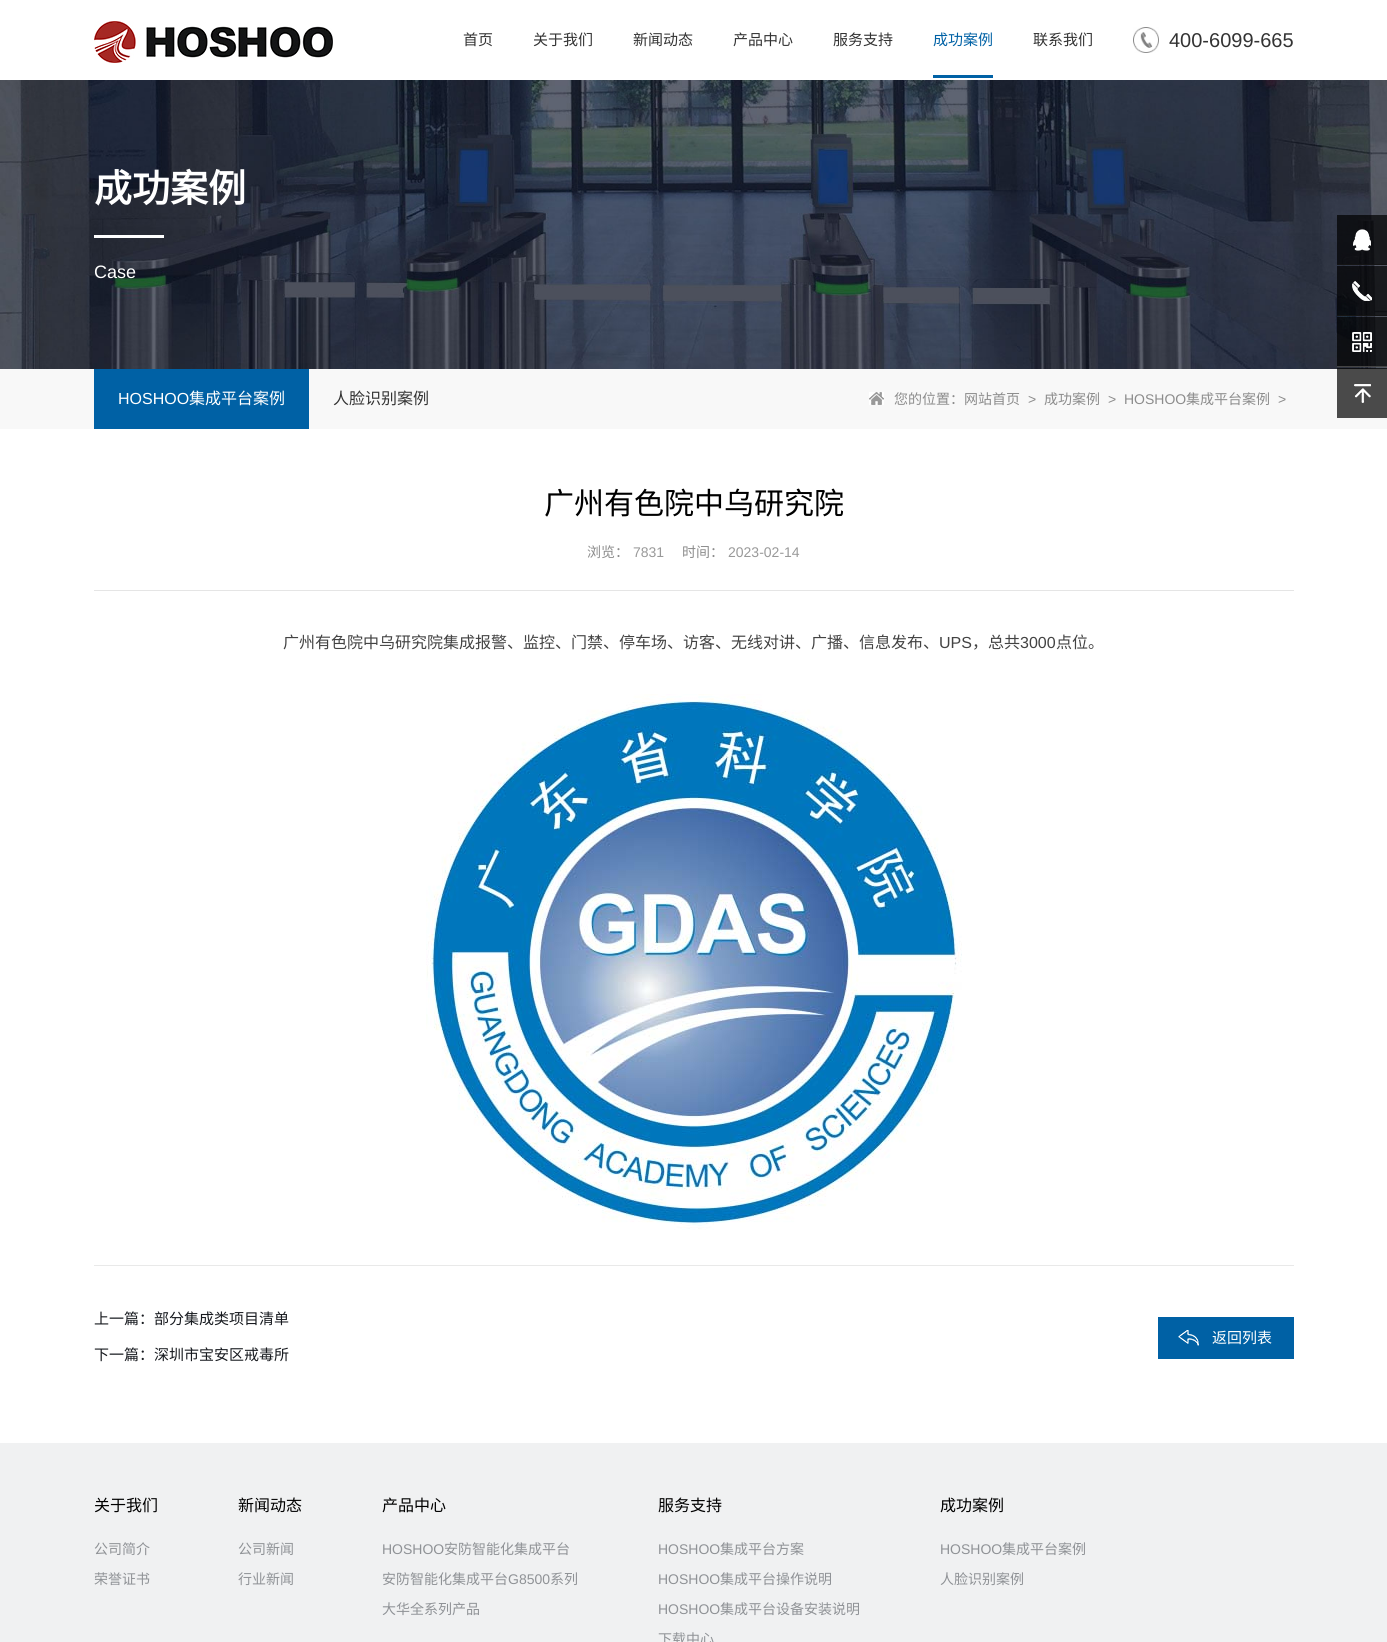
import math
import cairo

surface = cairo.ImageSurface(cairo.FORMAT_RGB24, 1387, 1642)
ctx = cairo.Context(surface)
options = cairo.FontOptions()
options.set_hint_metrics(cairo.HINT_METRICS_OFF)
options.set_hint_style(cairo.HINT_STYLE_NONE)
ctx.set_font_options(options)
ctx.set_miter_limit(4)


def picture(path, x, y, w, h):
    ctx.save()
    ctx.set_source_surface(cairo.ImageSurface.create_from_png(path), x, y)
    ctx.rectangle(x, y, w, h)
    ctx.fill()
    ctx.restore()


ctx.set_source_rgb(1, 1, 1)
ctx.paint()
picture("img1.png", 94, 21, 239, 42)
ctx.select_font_face("Noto Sans CJK SC")
ctx.set_font_size(15)
ctx.set_source_rgb(0.2, 0.2, 0.2)
ctx.move_to(463, 45)
ctx.show_text("首页")
ctx.move_to(533, 45)
ctx.show_text("关于我们")
ctx.move_to(633, 45)
ctx.show_text("新闻动态")
ctx.move_to(733, 45)
ctx.show_text("产品中心")
ctx.move_to(833, 45)
ctx.show_text("服务支持")
ctx.set_source_rgb(0, 0.38, 0.647)
ctx.move_to(933, 45)
ctx.show_text("成功案例")
ctx.rectangle(933, 75, 60, 3)
ctx.fill()
ctx.set_source_rgb(0.2, 0.2, 0.2)
ctx.move_to(1033, 45)
ctx.show_text("联系我们")
picture("img2.png", 1133, 27, 26, 26)
ctx.select_font_face("Liberation Sans")
ctx.set_font_size(20)
ctx.move_to(1169, 47)
ctx.show_text("400-6099-665")
picture("img3.png", 0, 80, 1387, 289)
ctx.select_font_face("Noto Sans CJK SC", cairo.FONT_SLANT_NORMAL, cairo.FONT_WEIGHT_BOLD)
ctx.set_font_size(38)
ctx.set_source_rgb(1, 1, 1)
ctx.move_to(94, 202)
ctx.show_text("成功案例")
ctx.rectangle(94, 235, 70, 3)
ctx.fill()
ctx.select_font_face("Liberation Sans")
ctx.set_font_size(18)
ctx.move_to(94, 278)
ctx.show_text("Case")
ctx.set_source_rgb(0.267, 0.267, 0.267)
ctx.rectangle(1337, 264, 50, 1)
ctx.fill()
ctx.set_source_rgba(0, 0, 0, 0.7)
ctx.rectangle(1337, 215, 50, 50)
ctx.fill()
picture("img4.png", 1353, 229, 18, 22)
ctx.set_source_rgb(0.267, 0.267, 0.267)
ctx.rectangle(1337, 315, 50, 1)
ctx.fill()
ctx.set_source_rgba(0, 0, 0, 0.7)
ctx.rectangle(1337, 266, 50, 50)
ctx.fill()
picture("img5.png", 1352, 281, 20, 20)
ctx.rectangle(1337, 317, 50, 49)
ctx.fill()
ctx.set_source_rgb(0.267, 0.267, 0.267)
ctx.rectangle(1337, 366, 50, 1)
ctx.fill()
picture("img6.png", 1352, 332, 20, 20)
ctx.set_source_rgb(0.969, 0.969, 0.969)
ctx.rectangle(0, 369, 1387, 60)
ctx.fill()
ctx.set_source_rgba(0, 0, 0, 0.7)
ctx.rectangle(1337, 368, 50, 50)
ctx.fill()
picture("img7.png", 1354, 384, 17, 19)
ctx.set_source_rgb(0, 0.38, 0.647)
ctx.rectangle(94, 369, 215, 60)
ctx.fill()
ctx.set_font_size(16)
ctx.set_source_rgb(1, 1, 1)
ctx.move_to(118, 404)
ctx.show_text("HOSHOO")
ctx.select_font_face("Noto Sans CJK SC")
ctx.move_to(189, 404)
ctx.show_text("集成平台案例")
ctx.set_source_rgb(0.2, 0.2, 0.2)
ctx.move_to(333, 404)
ctx.show_text("人脸识别案例")
picture("img8.png", 869, 392, 15, 13)
ctx.set_font_size(14)
ctx.set_source_rgb(0.549, 0.549, 0.549)
ctx.move_to(894, 404)
ctx.show_text("您的位置：网站首页")
ctx.select_font_face("Liberation Sans")
ctx.move_to(1028, 404)
ctx.show_text(">")
ctx.select_font_face("Noto Sans CJK SC")
ctx.move_to(1044, 404)
ctx.show_text("成功案例")
ctx.select_font_face("Liberation Sans")
ctx.move_to(1108, 404)
ctx.show_text(">")
ctx.move_to(1124, 404)
ctx.show_text("HOSHOO")
ctx.select_font_face("Noto Sans CJK SC")
ctx.move_to(1186, 404)
ctx.show_text("集成平台案例")
ctx.select_font_face("Liberation Sans")
ctx.move_to(1278, 404)
ctx.show_text(">")
ctx.set_source_rgb(0.898, 0.898, 0.898)
ctx.rectangle(94, 590, 1200, 1)
ctx.fill()
ctx.select_font_face("Noto Sans CJK SC")
ctx.set_font_size(30)
ctx.set_source_rgb(0, 0, 0)
ctx.move_to(544, 514)
ctx.show_text("广州有色院中乌研究院")
ctx.set_font_size(14)
ctx.set_source_rgb(0.549, 0.549, 0.549)
ctx.move_to(587, 557)
ctx.show_text("浏览：")
ctx.select_font_face("Liberation Sans")
ctx.set_source_rgb(0.6, 0.6, 0.6)
ctx.move_to(633, 557)
ctx.show_text("7831")
ctx.select_font_face("Noto Sans CJK SC")
ctx.set_source_rgb(0.549, 0.549, 0.549)
ctx.move_to(682, 557)
ctx.show_text("时间：")
ctx.select_font_face("Liberation Sans")
ctx.set_source_rgb(0.6, 0.6, 0.6)
ctx.move_to(728, 557)
ctx.show_text("2023-02-14")
ctx.select_font_face("Noto Sans CJK SC")
ctx.set_font_size(16)
ctx.set_source_rgb(0.263, 0.263, 0.263)
ctx.move_to(283, 648)
ctx.show_text("广州有色院中乌研究院集成报警、监控、门禁、停车场、访客、无线对讲、广播、信息发布、")
ctx.select_font_face("Liberation Sans")
ctx.move_to(939, 648)
ctx.show_text("UPS")
ctx.select_font_face("Noto Sans CJK SC")
ctx.move_to(972, 648)
ctx.show_text("，总共")
ctx.select_font_face("Liberation Sans")
ctx.move_to(1020, 648)
ctx.show_text("3000")
ctx.select_font_face("Noto Sans CJK SC")
ctx.move_to(1056, 648)
ctx.show_text("点位。")
picture("img9.png", 426, 694, 536, 536)
ctx.set_source_rgb(0.914, 0.914, 0.914)
ctx.rectangle(94, 1265, 1200, 1)
ctx.fill()
ctx.set_font_size(15)
ctx.set_source_rgb(0.09, 0.102, 0.122)
ctx.move_to(94, 1324)
ctx.show_text("上一篇：部分集成类项目清单")
ctx.move_to(94, 1360)
ctx.show_text("下一篇：深圳市宝安区戒毒所")
ctx.set_source_rgb(0, 0.38, 0.647)
ctx.rectangle(1158, 1317, 136, 42)
ctx.fill()
picture("img10.png", 1178, 1330, 21, 16)
ctx.set_source_rgb(1, 1, 1)
ctx.move_to(1212, 1343)
ctx.show_text("返回列表")
ctx.set_source_rgb(0.941, 0.945, 0.949)
ctx.rectangle(0, 1443, 1387, 199)
ctx.fill()
ctx.set_font_size(16)
ctx.set_source_rgb(0, 0, 0)
ctx.move_to(94, 1511)
ctx.show_text("关于我们")
ctx.set_font_size(14)
ctx.set_source_rgb(0.561, 0.573, 0.588)
ctx.move_to(94, 1554)
ctx.show_text("公司简介")
ctx.move_to(94, 1584)
ctx.show_text("荣誉证书")
ctx.set_font_size(16)
ctx.set_source_rgb(0, 0, 0)
ctx.move_to(238, 1511)
ctx.show_text("新闻动态")
ctx.set_font_size(14)
ctx.set_source_rgb(0.561, 0.573, 0.588)
ctx.move_to(238, 1554)
ctx.show_text("公司新闻")
ctx.move_to(238, 1584)
ctx.show_text("行业新闻")
ctx.set_font_size(16)
ctx.set_source_rgb(0, 0, 0)
ctx.move_to(382, 1511)
ctx.show_text("产品中心")
ctx.select_font_face("Liberation Sans")
ctx.set_font_size(14)
ctx.set_source_rgb(0.561, 0.573, 0.588)
ctx.move_to(382, 1554)
ctx.show_text("HOSHOO")
ctx.select_font_face("Noto Sans CJK SC")
ctx.move_to(444, 1554)
ctx.show_text("安防智能化集成平台")
ctx.move_to(382, 1584)
ctx.show_text("安防智能化集成平台")
ctx.select_font_face("Liberation Sans")
ctx.move_to(508, 1584)
ctx.show_text("G8500")
ctx.select_font_face("Noto Sans CJK SC")
ctx.move_to(550, 1584)
ctx.show_text("系列")
ctx.move_to(382, 1614)
ctx.show_text("大华全系列产品")
ctx.set_font_size(16)
ctx.set_source_rgb(0, 0, 0)
ctx.move_to(658, 1511)
ctx.show_text("服务支持")
ctx.select_font_face("Liberation Sans")
ctx.set_font_size(14)
ctx.set_source_rgb(0.561, 0.573, 0.588)
ctx.move_to(658, 1554)
ctx.show_text("HOSHOO")
ctx.select_font_face("Noto Sans CJK SC")
ctx.move_to(720, 1554)
ctx.show_text("集成平台方案")
ctx.select_font_face("Liberation Sans")
ctx.move_to(658, 1584)
ctx.show_text("HOSHOO")
ctx.select_font_face("Noto Sans CJK SC")
ctx.move_to(720, 1584)
ctx.show_text("集成平台操作说明")
ctx.select_font_face("Liberation Sans")
ctx.move_to(658, 1614)
ctx.show_text("HOSHOO")
ctx.select_font_face("Noto Sans CJK SC")
ctx.move_to(720, 1614)
ctx.show_text("集成平台设备安装说明")
ctx.move_to(658, 1644)
ctx.show_text("下载中心")
ctx.set_font_size(16)
ctx.set_source_rgb(0, 0, 0)
ctx.move_to(940, 1511)
ctx.show_text("成功案例")
ctx.select_font_face("Liberation Sans")
ctx.set_font_size(14)
ctx.set_source_rgb(0.561, 0.573, 0.588)
ctx.move_to(940, 1554)
ctx.show_text("HOSHOO")
ctx.select_font_face("Noto Sans CJK SC")
ctx.move_to(1002, 1554)
ctx.show_text("集成平台案例")
ctx.move_to(940, 1584)
ctx.show_text("人脸识别案例")
surface.write_to_png("page.png")
